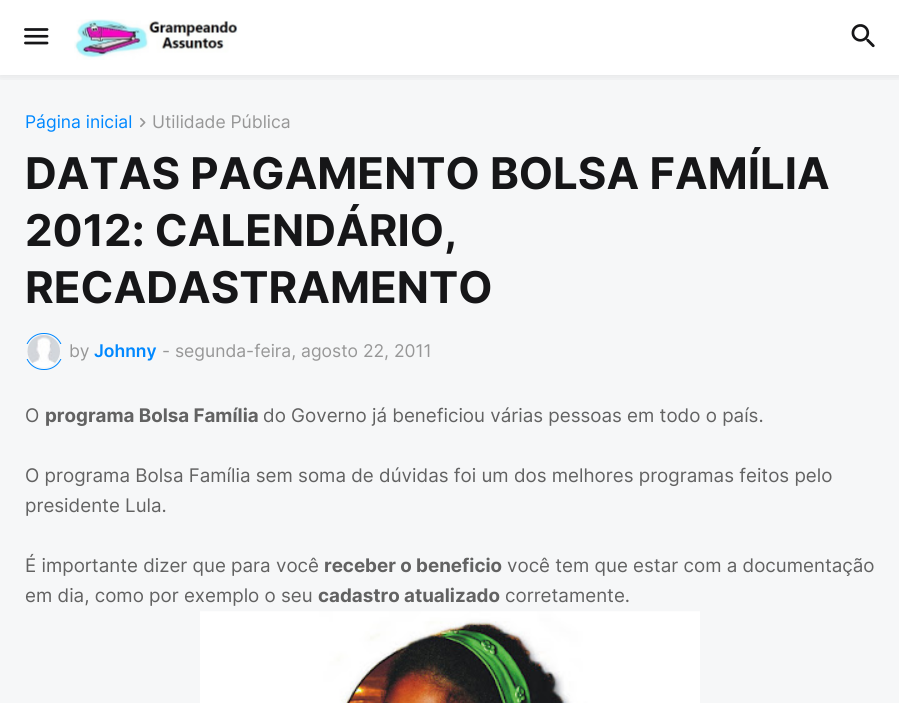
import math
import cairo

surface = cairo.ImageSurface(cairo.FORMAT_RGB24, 899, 703)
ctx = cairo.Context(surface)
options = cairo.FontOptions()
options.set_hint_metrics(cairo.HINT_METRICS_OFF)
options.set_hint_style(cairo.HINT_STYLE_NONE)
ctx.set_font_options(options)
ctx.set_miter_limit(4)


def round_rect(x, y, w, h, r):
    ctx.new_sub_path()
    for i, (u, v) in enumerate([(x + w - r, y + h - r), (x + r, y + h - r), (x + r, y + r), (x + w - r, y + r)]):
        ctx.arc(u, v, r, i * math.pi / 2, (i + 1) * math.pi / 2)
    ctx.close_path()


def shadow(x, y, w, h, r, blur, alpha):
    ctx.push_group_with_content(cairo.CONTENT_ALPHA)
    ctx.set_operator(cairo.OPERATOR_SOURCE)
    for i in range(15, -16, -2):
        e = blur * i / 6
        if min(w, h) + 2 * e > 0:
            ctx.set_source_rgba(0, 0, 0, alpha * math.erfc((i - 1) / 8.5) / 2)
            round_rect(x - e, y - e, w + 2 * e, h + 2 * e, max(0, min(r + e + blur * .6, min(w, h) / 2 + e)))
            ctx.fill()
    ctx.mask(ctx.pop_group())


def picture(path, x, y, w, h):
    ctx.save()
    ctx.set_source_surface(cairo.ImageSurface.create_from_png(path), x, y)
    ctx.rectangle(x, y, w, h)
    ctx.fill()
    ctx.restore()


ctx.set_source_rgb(0.961, 0.965, 0.969)
ctx.paint()
ctx.set_source_rgb(1, 1, 1)
ctx.rectangle(0, 0, 899, 75)
ctx.fill()
ctx.save()
ctx.rectangle(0, 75, 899, 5)
ctx.clip()
ctx.set_source_rgb(0, 0, 0)
shadow(0, 0, 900, 75, 0, 6, 0.1)
ctx.restore()
picture("img1.png", 24, 28, 25, 17)
picture("img2.png", 74, 19, 164, 41)
picture("img3.png", 851, 24, 24, 24)
ctx.select_font_face("Inter")
ctx.set_font_size(17.5)
ctx.set_source_rgb(0, 0.533, 1)
ctx.move_to(25, 128)
ctx.show_text("Página inicial")
picture("img4.png", 140, 117, 6, 11)
ctx.set_source_rgb(0.592, 0.592, 0.592)
ctx.move_to(152, 128)
ctx.show_text("Utilidade Pública")
ctx.select_font_face("Inter", cairo.FONT_SLANT_NORMAL, cairo.FONT_WEIGHT_BOLD)
ctx.set_font_size(43.75)
ctx.set_source_rgb(0.086, 0.086, 0.094)
ctx.move_to(25, 189)
ctx.show_text("DATAS PAGAMENTO BOLSA FAMÍLIA")
ctx.move_to(25, 246)
ctx.show_text("2012: CALENDÁRIO,")
ctx.move_to(25, 303)
ctx.show_text("RECADASTRAMENTO")
round_rect(25.5, 333.5, 37, 36, 18)
ctx.set_source_rgb(0, 0.533, 1)
ctx.set_line_width(1)
ctx.stroke()
ctx.set_source_rgb(0.961, 0.965, 0.969)
ctx.rectangle(25, 344, 38, 15)
ctx.fill()
picture("img5.png", 27, 335, 33, 33)
ctx.select_font_face("Inter")
ctx.set_font_size(17.5)
ctx.set_source_rgb(0.592, 0.592, 0.592)
ctx.move_to(69, 357)
ctx.show_text("by")
ctx.select_font_face("Inter SemiBold")
ctx.set_source_rgb(0, 0.533, 1)
ctx.move_to(94, 357)
ctx.show_text("Johnny")
ctx.select_font_face("Inter")
ctx.set_source_rgb(0.592, 0.592, 0.592)
ctx.move_to(162, 357)
ctx.show_text("- segunda-feira, agosto 22, 2011")
ctx.set_font_size(18.75)
ctx.set_source_rgb(0.384, 0.384, 0.384)
ctx.move_to(25, 422)
ctx.show_text("O")
ctx.select_font_face("Inter", cairo.FONT_SLANT_NORMAL, cairo.FONT_WEIGHT_BOLD)
ctx.move_to(45, 422)
ctx.show_text("programa Bolsa Família")
ctx.select_font_face("Inter")
ctx.move_to(263, 422)
ctx.show_text("do Governo já beneficiou várias pessoas em todo o país.")
ctx.move_to(25, 482)
ctx.show_text("O programa Bolsa Família sem soma de dúvidas foi um dos melhores programas feitos pelo")
ctx.move_to(25, 512)
ctx.show_text("presidente Lula.")
ctx.move_to(25, 572)
ctx.show_text("É importante dizer que para você")
ctx.select_font_face("Inter", cairo.FONT_SLANT_NORMAL, cairo.FONT_WEIGHT_BOLD)
ctx.move_to(324, 572)
ctx.show_text("receber o beneficio")
ctx.select_font_face("Inter")
ctx.move_to(507, 572)
ctx.show_text("você tem que estar com a documentação")
ctx.move_to(25, 602)
ctx.show_text("em dia, como por exemplo o seu")
ctx.select_font_face("Inter", cairo.FONT_SLANT_NORMAL, cairo.FONT_WEIGHT_BOLD)
ctx.move_to(318, 602)
ctx.show_text("cadastro atualizado")
ctx.select_font_face("Inter")
ctx.move_to(505, 602)
ctx.show_text("corretamente.")
picture("img6.png", 200, 611, 500, 92)
surface.write_to_png("page.png")
